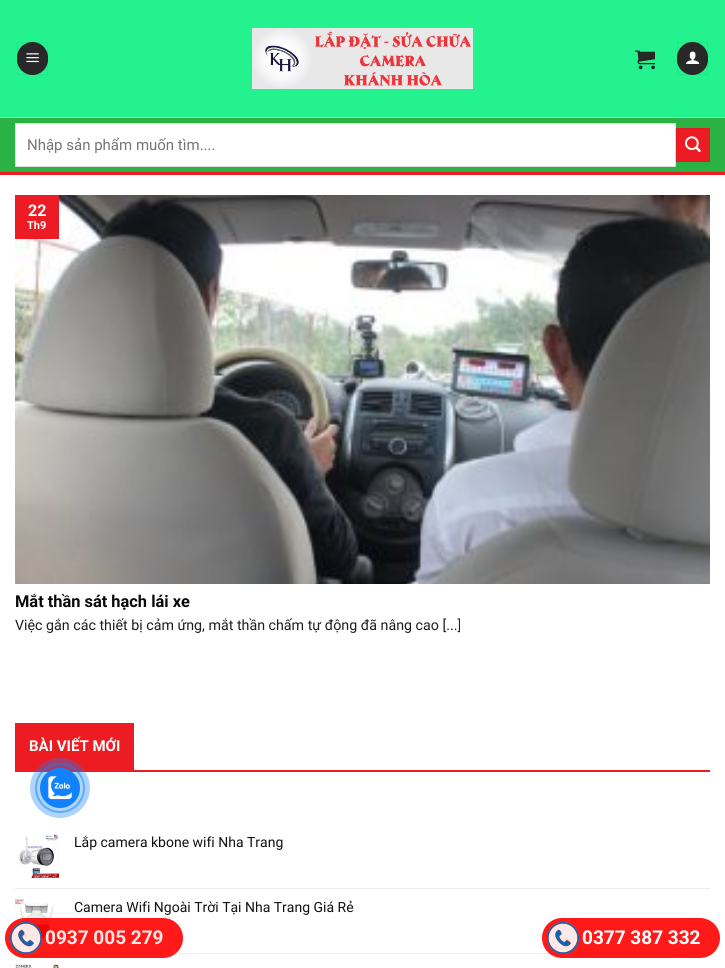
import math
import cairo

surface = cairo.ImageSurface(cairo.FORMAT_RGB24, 725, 968)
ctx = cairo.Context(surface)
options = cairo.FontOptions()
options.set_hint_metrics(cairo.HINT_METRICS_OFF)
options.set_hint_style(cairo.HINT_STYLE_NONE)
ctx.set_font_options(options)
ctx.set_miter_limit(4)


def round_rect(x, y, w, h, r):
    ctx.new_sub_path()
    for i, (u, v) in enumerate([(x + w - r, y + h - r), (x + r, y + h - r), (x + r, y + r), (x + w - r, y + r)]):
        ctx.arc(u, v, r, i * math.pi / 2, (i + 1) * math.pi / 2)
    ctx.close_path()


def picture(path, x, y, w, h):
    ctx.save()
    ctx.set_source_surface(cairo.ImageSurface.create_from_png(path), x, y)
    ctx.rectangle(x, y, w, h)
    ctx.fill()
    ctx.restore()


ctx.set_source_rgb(1, 1, 1)
ctx.paint()
ctx.set_source_rgb(0.137, 0.949, 0.557)
ctx.rectangle(0, 0, 725, 117)
ctx.fill()
ctx.set_source_rgb(0.157, 0.157, 0.157)
round_rect(17, 42, 31, 33, 15.5)
ctx.fill()
ctx.rectangle(17.5, 42.5, 30, 32)
ctx.set_source_rgba(0, 0, 0, 0.05)
ctx.set_line_width(1)
ctx.stroke()
picture("img1.png", 26, 53, 13, 10)
picture("img2.png", 252, 28, 221, 61)
picture("img3.png", 635, 50, 20, 20)
ctx.set_source_rgb(0.157, 0.157, 0.157)
round_rect(677, 42, 31, 33, 15.5)
ctx.fill()
ctx.rectangle(677.5, 42.5, 30, 32)
ctx.set_source_rgba(0, 0, 0, 0.05)
ctx.stroke()
picture("img4.png", 686, 51, 14, 13)
ctx.set_source_rgb(0.169, 0.698, 0.267)
ctx.rectangle(0, 118, 725, 54)
ctx.fill()
ctx.set_source_rgb(0.8, 0.8, 0.8)
ctx.rectangle(0, 117, 725, 1)
ctx.fill()
ctx.set_source_rgb(0.929, 0.11, 0.141)
ctx.rectangle(0, 172, 725, 3)
ctx.fill()
ctx.set_source_rgb(1, 1, 1)
ctx.rectangle(15.5, 123.5, 660, 43)
ctx.fill_preserve()
ctx.set_source_rgb(0.867, 0.867, 0.867)
ctx.stroke()
ctx.select_font_face("Roboto")
ctx.set_font_size(15)
ctx.set_source_rgb(0.459, 0.459, 0.459)
ctx.move_to(27, 150)
ctx.show_text("Nhập sản phẩm muốn tìm....")
ctx.set_source_rgb(0.929, 0.11, 0.141)
ctx.rectangle(676.5, 128.5, 33, 33)
ctx.fill_preserve()
ctx.set_source_rgb(0.882, 0.106, 0.133)
ctx.stroke()
picture("img5.png", 685, 136, 16, 16)
picture("img6.png", 15, 195, 695, 389)
ctx.set_source_rgb(0.929, 0.11, 0.141)
ctx.rectangle(15, 195, 44, 44)
ctx.fill()
ctx.select_font_face("Roboto", cairo.FONT_SLANT_NORMAL, cairo.FONT_WEIGHT_BOLD)
ctx.set_font_size(16)
ctx.set_source_rgb(1, 1, 1)
ctx.move_to(28, 216)
ctx.show_text("22")
ctx.set_font_size(11)
ctx.move_to(27, 229)
ctx.show_text("Th9")
ctx.set_font_size(16.4)
ctx.set_source_rgb(0.039, 0.039, 0.039)
ctx.move_to(15, 607)
ctx.show_text("Mắt thần sát hạch lái xe")
ctx.select_font_face("Roboto")
ctx.set_font_size(14.25)
ctx.set_source_rgb(0.118, 0.118, 0.118)
ctx.move_to(15, 630)
ctx.show_text("Việc gắn các thiết bị cảm ứng, mắt thần chấm tự động đã nâng cao [...]")
ctx.set_source_rgb(0.929, 0.11, 0.133)
ctx.rectangle(15, 770, 695, 2)
ctx.fill()
ctx.rectangle(15, 723, 119, 47)
ctx.fill()
ctx.select_font_face("Roboto", cairo.FONT_SLANT_NORMAL, cairo.FONT_WEIGHT_BOLD)
ctx.set_font_size(15)
ctx.set_source_rgb(1, 1, 1)
ctx.move_to(29, 751)
ctx.show_text("BÀI VIẾT MỚI")
picture("img7.png", 18, 834, 41, 44)
ctx.select_font_face("Roboto")
ctx.set_font_size(14)
ctx.set_source_rgb(0.067, 0.067, 0.067)
ctx.move_to(74, 847)
ctx.show_text("Lắp camera kbone wifi Nha Trang")
ctx.set_source_rgb(0.925, 0.925, 0.925)
ctx.rectangle(15, 888, 695, 1)
ctx.fill()
picture("img8.png", 15, 899, 44, 44)
ctx.set_source_rgb(0.067, 0.067, 0.067)
ctx.move_to(74, 912)
ctx.show_text("Camera Wifi Ngoài Trời Tại Nha Trang Giá Rẻ")
ctx.set_source_rgb(0.925, 0.925, 0.925)
ctx.rectangle(15, 953, 695, 1)
ctx.fill()
picture("img9.png", 15, 964, 44, 4)
ctx.arc(60, 788, 24, 0, 2 * math.pi)
ctx.set_source_rgba(0.067, 0.51, 0.988, 0.5)
ctx.set_line_width(2)
ctx.stroke()
ctx.set_source_rgba(0.067, 0.51, 0.988, 0.34)
ctx.arc(60, 788, 30, 0, 2 * math.pi)
ctx.fill()
ctx.set_source_rgb(0.067, 0.51, 0.988)
ctx.arc(60, 788, 20, 0, 2 * math.pi)
ctx.fill()
picture("img10.png", 47, 776, 25, 24)
ctx.set_source_rgba(1, 0, 0, 0.9)
round_rect(5, 918, 178, 40, 20)
ctx.fill()
picture("img11.png", 10, 922, 32, 32)
ctx.select_font_face("Roboto", cairo.FONT_SLANT_NORMAL, cairo.FONT_WEIGHT_BOLD)
ctx.set_font_size(19)
ctx.set_source_rgb(1, 0.91, 0.91)
ctx.move_to(45, 944)
ctx.show_text("0937 005 279")
ctx.set_source_rgba(1, 0, 0, 0.9)
round_rect(542, 918, 178, 40, 20)
ctx.fill()
picture("img12.png", 547, 922, 32, 32)
ctx.set_source_rgb(1, 1, 1)
ctx.move_to(582, 944)
ctx.show_text("0377 387 332")
surface.write_to_png("page.png")
